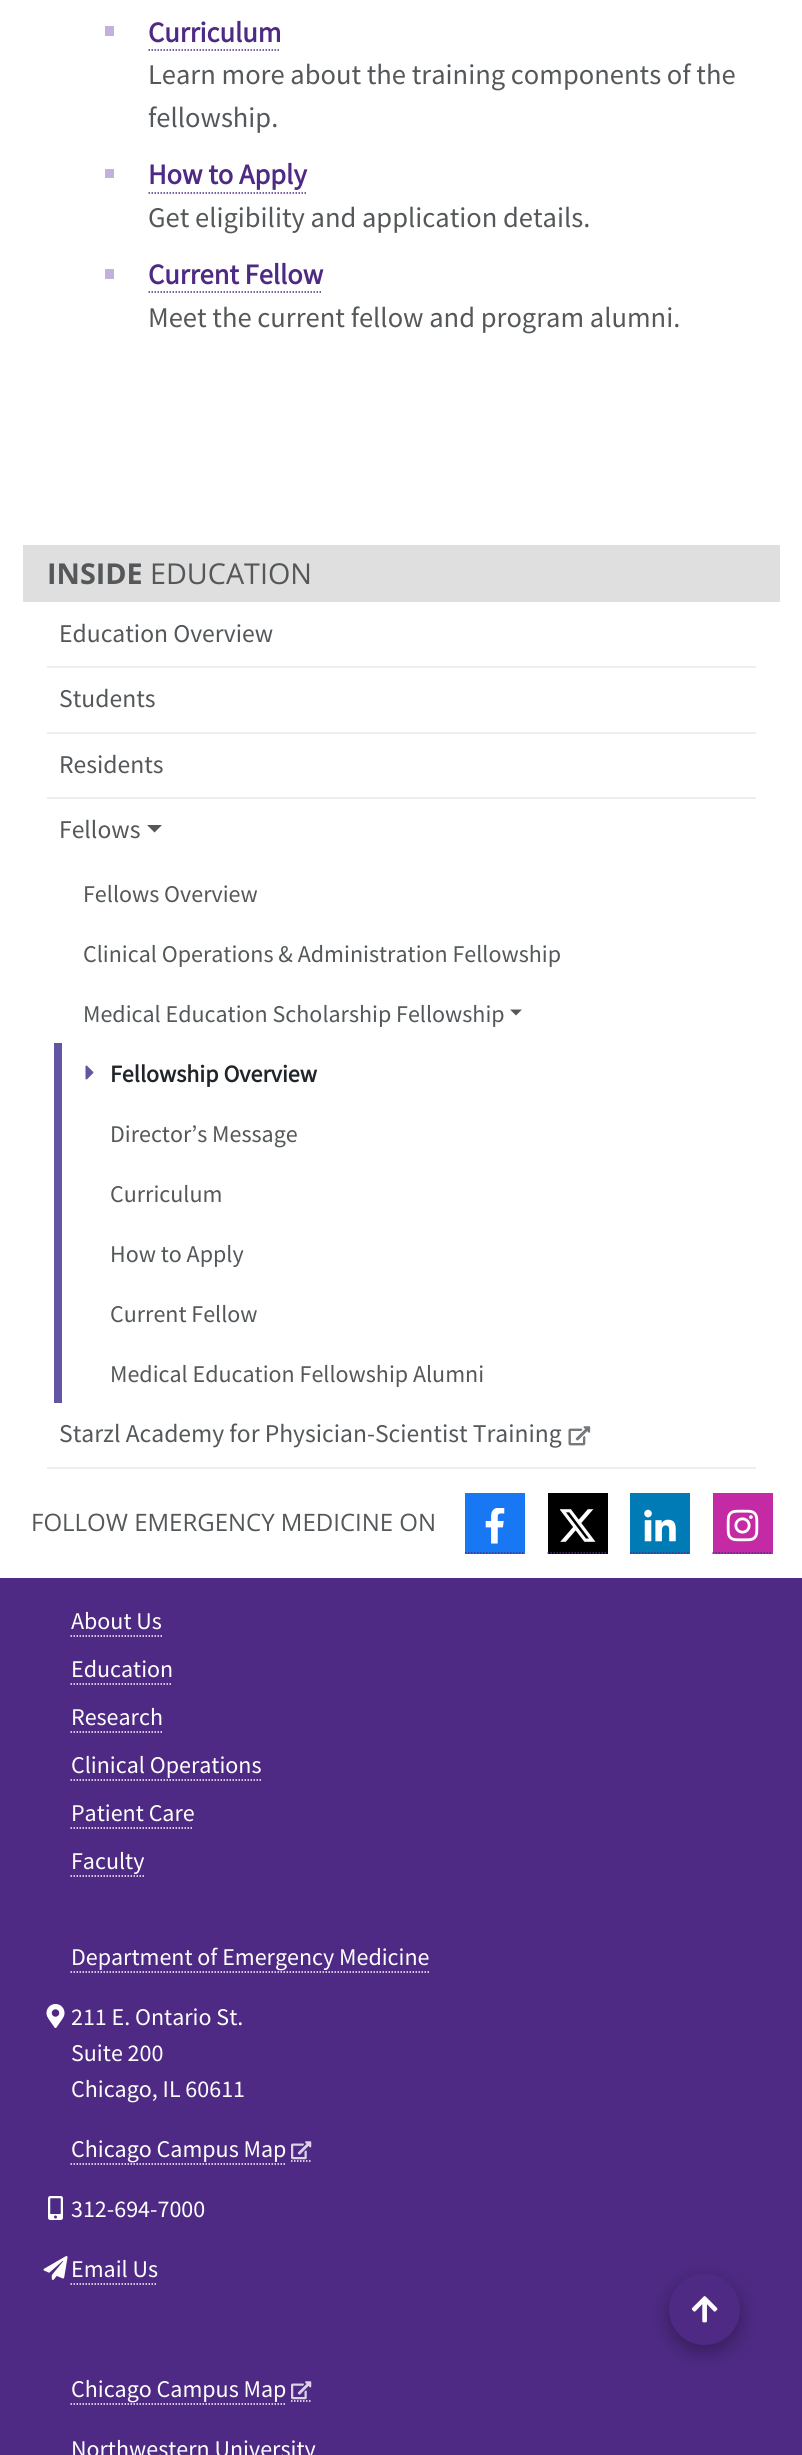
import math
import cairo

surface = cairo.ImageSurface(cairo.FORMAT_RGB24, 802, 2455)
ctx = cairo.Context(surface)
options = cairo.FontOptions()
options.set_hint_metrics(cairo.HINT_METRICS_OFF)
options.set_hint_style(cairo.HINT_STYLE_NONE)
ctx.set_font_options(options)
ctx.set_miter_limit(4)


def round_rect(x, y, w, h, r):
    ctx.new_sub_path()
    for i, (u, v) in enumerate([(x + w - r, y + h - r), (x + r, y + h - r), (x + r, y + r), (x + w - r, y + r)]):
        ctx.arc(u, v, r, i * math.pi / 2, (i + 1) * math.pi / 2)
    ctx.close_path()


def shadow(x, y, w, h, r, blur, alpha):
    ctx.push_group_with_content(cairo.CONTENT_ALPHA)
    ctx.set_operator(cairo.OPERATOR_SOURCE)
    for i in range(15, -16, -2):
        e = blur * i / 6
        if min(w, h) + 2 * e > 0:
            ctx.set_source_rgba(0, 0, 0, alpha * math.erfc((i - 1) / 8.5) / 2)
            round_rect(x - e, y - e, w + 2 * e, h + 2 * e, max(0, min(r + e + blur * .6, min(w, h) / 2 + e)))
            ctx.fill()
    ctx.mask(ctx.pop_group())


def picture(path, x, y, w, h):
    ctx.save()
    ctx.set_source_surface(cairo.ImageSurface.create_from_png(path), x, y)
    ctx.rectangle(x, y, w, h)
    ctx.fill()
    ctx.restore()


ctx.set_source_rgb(1, 1, 1)
ctx.paint()
ctx.set_source_rgb(0.765, 0.694, 0.867)
ctx.rectangle(105, 26, 9, 10)
ctx.fill()
ctx.select_font_face("Source Sans Pro", cairo.FONT_SLANT_NORMAL, cairo.FONT_WEIGHT_BOLD)
ctx.set_font_size(28.5)
ctx.set_source_rgb(0.306, 0.165, 0.518)
ctx.move_to(148, 42)
ctx.show_text("Curriculum")
ctx.new_path()
ctx.move_to(148.5, 50)
ctx.line_to(280.5, 50)
ctx.set_line_width(1.5)
ctx.set_dash([1.5, 1.5])
ctx.stroke()
ctx.select_font_face("Source Sans Pro")
ctx.set_source_rgb(0.329, 0.345, 0.353)
ctx.move_to(148, 84)
ctx.show_text("Learn more about the training components of the")
ctx.move_to(148, 127)
ctx.show_text("fellowship.")
ctx.set_source_rgb(0.765, 0.694, 0.867)
ctx.rectangle(105, 169, 9, 9)
ctx.fill()
ctx.select_font_face("Source Sans Pro", cairo.FONT_SLANT_NORMAL, cairo.FONT_WEIGHT_BOLD)
ctx.set_source_rgb(0.306, 0.165, 0.518)
ctx.move_to(148, 184)
ctx.show_text("How to Apply")
ctx.new_path()
ctx.move_to(148.5, 193)
ctx.line_to(306, 193)
ctx.stroke()
ctx.select_font_face("Source Sans Pro")
ctx.set_source_rgb(0.329, 0.345, 0.353)
ctx.move_to(148, 227)
ctx.show_text("Get eligibility and application details.")
ctx.set_source_rgb(0.765, 0.694, 0.867)
ctx.rectangle(105, 269, 9, 10)
ctx.fill()
ctx.select_font_face("Source Sans Pro", cairo.FONT_SLANT_NORMAL, cairo.FONT_WEIGHT_BOLD)
ctx.set_source_rgb(0.306, 0.165, 0.518)
ctx.move_to(148, 284)
ctx.show_text("Current Fellow")
ctx.new_path()
ctx.move_to(148.5, 292)
ctx.line_to(322.5, 292)
ctx.stroke()
ctx.select_font_face("Source Sans Pro")
ctx.set_source_rgb(0.329, 0.345, 0.353)
ctx.move_to(148, 327)
ctx.show_text("Meet the current fellow and program alumni.")
ctx.set_source_rgb(0.875, 0.875, 0.875)
ctx.rectangle(23, 545, 757, 57)
ctx.fill()
ctx.select_font_face("Open Sans", cairo.FONT_SLANT_NORMAL, cairo.FONT_WEIGHT_BOLD)
ctx.set_font_size(28.75)
ctx.set_source_rgb(0.329, 0.345, 0.353)
ctx.move_to(47, 584)
ctx.show_text("INSIDE")
ctx.select_font_face("Open Sans")
ctx.move_to(150, 584)
ctx.show_text("EDUCATION")
ctx.set_source_rgb(0.933, 0.933, 0.933)
ctx.rectangle(47, 666, 709, 2)
ctx.fill()
ctx.select_font_face("Source Sans Pro")
ctx.set_font_size(25.6)
ctx.set_source_rgb(0.329, 0.345, 0.353)
ctx.move_to(59, 642)
ctx.show_text("Education Overview")
ctx.set_source_rgb(0.933, 0.933, 0.933)
ctx.rectangle(47, 732, 709, 2)
ctx.fill()
ctx.set_source_rgb(0.329, 0.345, 0.353)
ctx.move_to(59, 707)
ctx.show_text("Students")
ctx.set_source_rgb(0.933, 0.933, 0.933)
ctx.rectangle(47, 797, 709, 2)
ctx.fill()
ctx.set_source_rgb(0.329, 0.345, 0.353)
ctx.move_to(59, 773)
ctx.show_text("Residents")
ctx.move_to(59, 838)
ctx.show_text("Fellows")
ctx.new_path()
ctx.move_to(147, 825)
ctx.line_to(162, 825)
ctx.line_to(154.5, 832.5)
ctx.close_path()
ctx.fill()
ctx.set_font_size(24)
ctx.move_to(83, 902)
ctx.show_text("Fellows Overview")
ctx.move_to(83, 962)
ctx.show_text("Clinical Operations & Administration Fellowship")
ctx.move_to(83, 1022)
ctx.show_text("Medical Education Scholarship Fellowship")
ctx.new_path()
ctx.move_to(510, 1009.5)
ctx.line_to(522, 1009.5)
ctx.line_to(516, 1015.5)
ctx.close_path()
ctx.fill()
ctx.set_source_rgb(0.388, 0.333, 0.635)
ctx.rectangle(54, 1043, 8, 360)
ctx.fill()
picture("img1.png", 85, 1065, 9, 15)
ctx.select_font_face("Source Sans Pro", cairo.FONT_SLANT_NORMAL, cairo.FONT_WEIGHT_BOLD)
ctx.set_source_rgb(0.129, 0.145, 0.161)
ctx.move_to(110, 1082)
ctx.show_text("Fellowship Overview")
ctx.select_font_face("Source Sans Pro")
ctx.set_source_rgb(0.329, 0.345, 0.353)
ctx.move_to(110, 1142)
ctx.show_text("Director’s Message")
ctx.move_to(110, 1202)
ctx.show_text("Curriculum")
ctx.move_to(110, 1262)
ctx.show_text("How to Apply")
ctx.move_to(110, 1322)
ctx.show_text("Current Fellow")
ctx.move_to(110, 1382)
ctx.show_text("Medical Education Fellowship Alumni")
ctx.set_source_rgb(0.933, 0.933, 0.933)
ctx.rectangle(47, 1467, 709, 2)
ctx.fill()
ctx.set_font_size(25.6)
ctx.set_source_rgb(0.329, 0.345, 0.353)
ctx.move_to(59, 1442)
ctx.show_text("Starzl Academy for Physician-Scientist Training")
picture("img2.png", 568, 1426, 23, 20)
ctx.set_source_rgb(0.306, 0.165, 0.518)
ctx.rectangle(0, 1578, 802, 877)
ctx.fill()
ctx.set_source_rgb(0.008, 0.004, 0.012)
shadow(669, 2280, 71, 71, 35.5, 11, 0.15)
shadow(669, 2282, 71, 70, 35, 8, 0.18)
ctx.set_source_rgb(0.306, 0.165, 0.518)
ctx.arc(704.5, 2309.5, 35.5, 0, 2 * math.pi)
ctx.fill()
picture("img3.png", 691, 2296, 27, 27)
ctx.select_font_face("Open Sans")
ctx.set_font_size(24)
ctx.set_source_rgb(0.329, 0.345, 0.353)
ctx.move_to(31, 1531)
ctx.show_text("FOLLOW EMERGENCY MEDICINE ON")
ctx.set_source_rgb(0.094, 0.467, 0.949)
ctx.rectangle(465, 1493, 60, 61)
ctx.fill()
ctx.new_path()
ctx.move_to(465, 1553)
ctx.line_to(525, 1553)
ctx.set_source_rgb(0.306, 0.165, 0.518)
ctx.stroke()
picture("img4.png", 485, 1508, 20, 36)
ctx.set_source_rgb(0, 0, 0)
ctx.rectangle(548, 1493, 60, 61)
ctx.fill()
ctx.new_path()
ctx.move_to(547.5, 1553)
ctx.line_to(607.5, 1553)
ctx.set_source_rgb(0.306, 0.165, 0.518)
ctx.stroke()
picture("img5.png", 560, 1509, 36, 33)
ctx.set_source_rgb(0, 0.482, 0.71)
ctx.rectangle(630, 1493, 60, 61)
ctx.fill()
ctx.new_path()
ctx.move_to(630, 1553)
ctx.line_to(690, 1553)
ctx.set_source_rgb(0.306, 0.165, 0.518)
ctx.stroke()
picture("img6.png", 644, 1509, 32, 33)
ctx.set_source_rgb(0.765, 0.165, 0.639)
ctx.rectangle(713, 1493, 60, 61)
ctx.fill()
ctx.new_path()
ctx.move_to(712.5, 1553)
ctx.line_to(772.5, 1553)
ctx.set_source_rgb(0.306, 0.165, 0.518)
ctx.stroke()
picture("img7.png", 726, 1509, 33, 33)
ctx.select_font_face("Source Sans Pro")
ctx.set_source_rgb(1, 1, 1)
ctx.move_to(71, 1629)
ctx.show_text("About Us")
ctx.new_path()
ctx.move_to(70.5, 1636)
ctx.line_to(162, 1636)
ctx.stroke()
ctx.move_to(71, 1677)
ctx.show_text("Education")
ctx.new_path()
ctx.move_to(70.5, 1684)
ctx.line_to(172.5, 1684)
ctx.stroke()
ctx.move_to(71, 1725)
ctx.show_text("Research")
ctx.new_path()
ctx.move_to(70.5, 1732)
ctx.line_to(162, 1732)
ctx.stroke()
ctx.move_to(71, 1773)
ctx.show_text("Clinical Operations")
ctx.new_path()
ctx.move_to(70.5, 1780)
ctx.line_to(261, 1780)
ctx.stroke()
ctx.move_to(71, 1821)
ctx.show_text("Patient Care")
ctx.new_path()
ctx.move_to(70.5, 1828)
ctx.line_to(193.5, 1828)
ctx.stroke()
ctx.move_to(71, 1869)
ctx.show_text("Faculty")
ctx.new_path()
ctx.move_to(70.5, 1876)
ctx.line_to(144, 1876)
ctx.stroke()
ctx.move_to(71, 1965)
ctx.show_text("Department of Emergency Medicine")
ctx.new_path()
ctx.move_to(70.5, 1972)
ctx.line_to(429, 1972)
ctx.stroke()
picture("img8.png", 46, 2004, 19, 24)
ctx.move_to(71, 2025)
ctx.show_text("211 E. Ontario St.")
ctx.move_to(71, 2061)
ctx.show_text("Suite 200")
ctx.move_to(71, 2097)
ctx.show_text("Chicago, IL 60611")
ctx.new_path()
ctx.move_to(70.5, 2164)
ctx.line_to(286.5, 2164)
ctx.stroke()
ctx.new_path()
ctx.move_to(291, 2161)
ctx.line_to(312, 2161)
ctx.stroke()
ctx.move_to(71, 2157)
ctx.show_text("Chicago Campus Map")
picture("img9.png", 291, 2141, 21, 19)
picture("img10.png", 48, 2196, 15, 24)
ctx.move_to(71, 2217)
ctx.show_text("312-694-7000")
picture("img11.png", 43, 2256, 25, 24)
ctx.move_to(71, 2277)
ctx.show_text("Email Us")
ctx.new_path()
ctx.move_to(70.5, 2284)
ctx.line_to(157.5, 2284)
ctx.stroke()
ctx.new_path()
ctx.move_to(70.5, 2404)
ctx.line_to(286.5, 2404)
ctx.stroke()
ctx.new_path()
ctx.move_to(291, 2401)
ctx.line_to(312, 2401)
ctx.stroke()
ctx.move_to(71, 2397)
ctx.show_text("Chicago Campus Map")
picture("img9.png", 291, 2381, 21, 19)
ctx.move_to(71, 2457)
ctx.show_text("Northwestern University")
surface.write_to_png("page.png")
